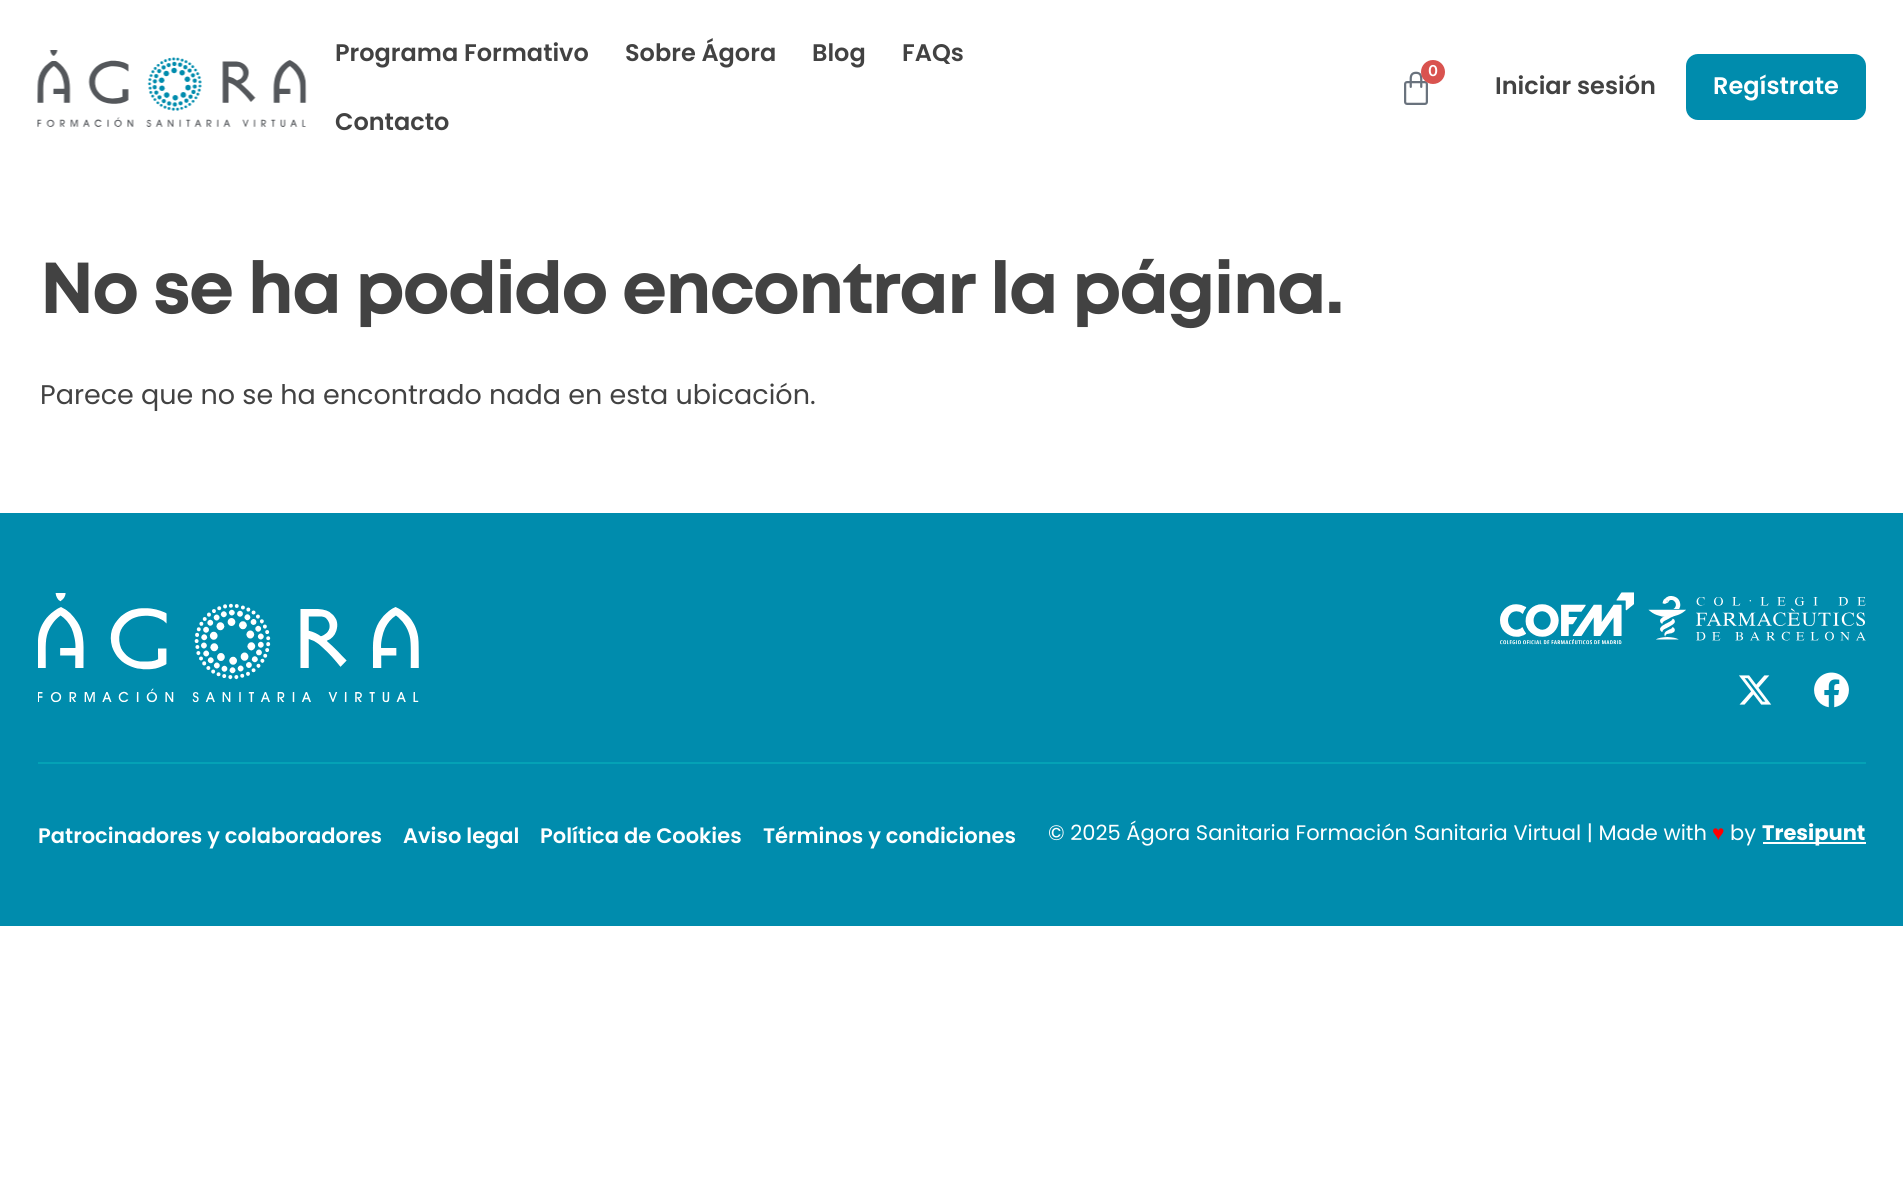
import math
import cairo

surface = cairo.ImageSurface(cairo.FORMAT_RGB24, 1903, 1181)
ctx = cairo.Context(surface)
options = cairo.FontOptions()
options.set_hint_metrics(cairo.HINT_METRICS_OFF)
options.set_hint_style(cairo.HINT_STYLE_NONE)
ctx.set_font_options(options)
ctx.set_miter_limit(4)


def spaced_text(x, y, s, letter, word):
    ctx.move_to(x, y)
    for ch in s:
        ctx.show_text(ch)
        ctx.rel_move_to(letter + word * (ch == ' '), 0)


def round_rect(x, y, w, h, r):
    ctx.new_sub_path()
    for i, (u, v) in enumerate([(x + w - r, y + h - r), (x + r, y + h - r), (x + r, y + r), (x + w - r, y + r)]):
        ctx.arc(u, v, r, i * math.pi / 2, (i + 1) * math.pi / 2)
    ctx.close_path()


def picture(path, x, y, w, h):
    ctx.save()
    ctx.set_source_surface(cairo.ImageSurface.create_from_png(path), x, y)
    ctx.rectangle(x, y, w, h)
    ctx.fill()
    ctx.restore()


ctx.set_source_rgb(1, 1, 1)
ctx.paint()
picture("img1.png", 37, 50, 270, 77)
ctx.select_font_face("Poppins SemiBold")
ctx.set_font_size(24)
ctx.set_source_rgb(0.259, 0.259, 0.259)
ctx.move_to(335, 61)
ctx.show_text("Programa Formativo")
ctx.move_to(625, 61)
ctx.show_text("Sobre Ágora")
ctx.move_to(812, 61)
ctx.show_text("Blog")
ctx.move_to(902, 61)
ctx.show_text("FAQs")
ctx.move_to(335, 130)
ctx.show_text("Contacto")
picture("img2.png", 1404, 71, 24, 34)
ctx.set_source_rgb(0.851, 0.325, 0.31)
ctx.arc(1433, 72, 12, 0, 2 * math.pi)
ctx.fill()
ctx.select_font_face("Inter SemiBold")
ctx.set_font_size(15)
ctx.set_source_rgb(1, 1, 1)
ctx.move_to(1428, 76)
ctx.show_text("0")
ctx.select_font_face("Poppins SemiBold")
ctx.set_font_size(24)
ctx.set_source_rgb(0.259, 0.259, 0.259)
ctx.move_to(1495, 94)
ctx.show_text("Iniciar sesión")
ctx.set_source_rgb(0, 0.549, 0.678)
round_rect(1686, 54, 180, 66, 12)
ctx.fill()
ctx.set_source_rgb(1, 1, 1)
ctx.move_to(1713, 94)
ctx.show_text("Regístrate")
ctx.select_font_face("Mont", cairo.FONT_SLANT_NORMAL, cairo.FONT_WEIGHT_BOLD)
ctx.set_font_size(72)
ctx.set_source_rgb(0.259, 0.259, 0.259)
spaced_text(40, 313, "No se ha podido encontrar la página.", -1.8, 0)
ctx.select_font_face("Poppins")
ctx.set_font_size(27)
ctx.move_to(40, 404)
ctx.show_text("Parece que no se ha encontrado nada en esta ubicación.")
ctx.set_source_rgb(0, 0.549, 0.678)
ctx.rectangle(0, 513, 1903, 413)
ctx.fill()
picture("img3.png", 38, 593, 381, 110)
picture("img4.png", 1500, 592, 134, 53)
picture("img5.png", 1648, 596, 218, 45)
picture("img6.png", 1739, 675, 33, 30)
picture("img7.png", 1814, 672, 35, 36)
ctx.set_source_rgb(0.016, 0.635, 0.714)
ctx.rectangle(38, 762, 1828, 2)
ctx.fill()
ctx.select_font_face("Poppins SemiBold")
ctx.set_font_size(21)
ctx.set_source_rgb(1, 1, 1)
ctx.move_to(38, 843)
ctx.show_text("Patrocinadores y colaboradores")
ctx.move_to(403, 843)
ctx.show_text("Aviso legal")
ctx.move_to(540, 843)
ctx.show_text("Política de Cookies")
ctx.move_to(763, 843)
ctx.show_text("Términos y condiciones")
ctx.select_font_face("Poppins")
ctx.move_to(1048, 840)
ctx.show_text("© 2025 Ágora Sanitaria Formación Sanitaria Virtual | Made with")
ctx.select_font_face("Liberation Sans")
ctx.set_source_rgb(1, 0, 0)
ctx.move_to(1712, 840)
ctx.show_text("♥")
ctx.select_font_face("Poppins")
ctx.set_source_rgb(1, 1, 1)
ctx.move_to(1730, 840)
ctx.show_text("by")
ctx.rectangle(1763, 842, 103, 2)
ctx.fill()
ctx.select_font_face("Poppins", cairo.FONT_SLANT_NORMAL, cairo.FONT_WEIGHT_BOLD)
ctx.move_to(1762, 840)
ctx.show_text("Tresipunt")
surface.write_to_png("page.png")
